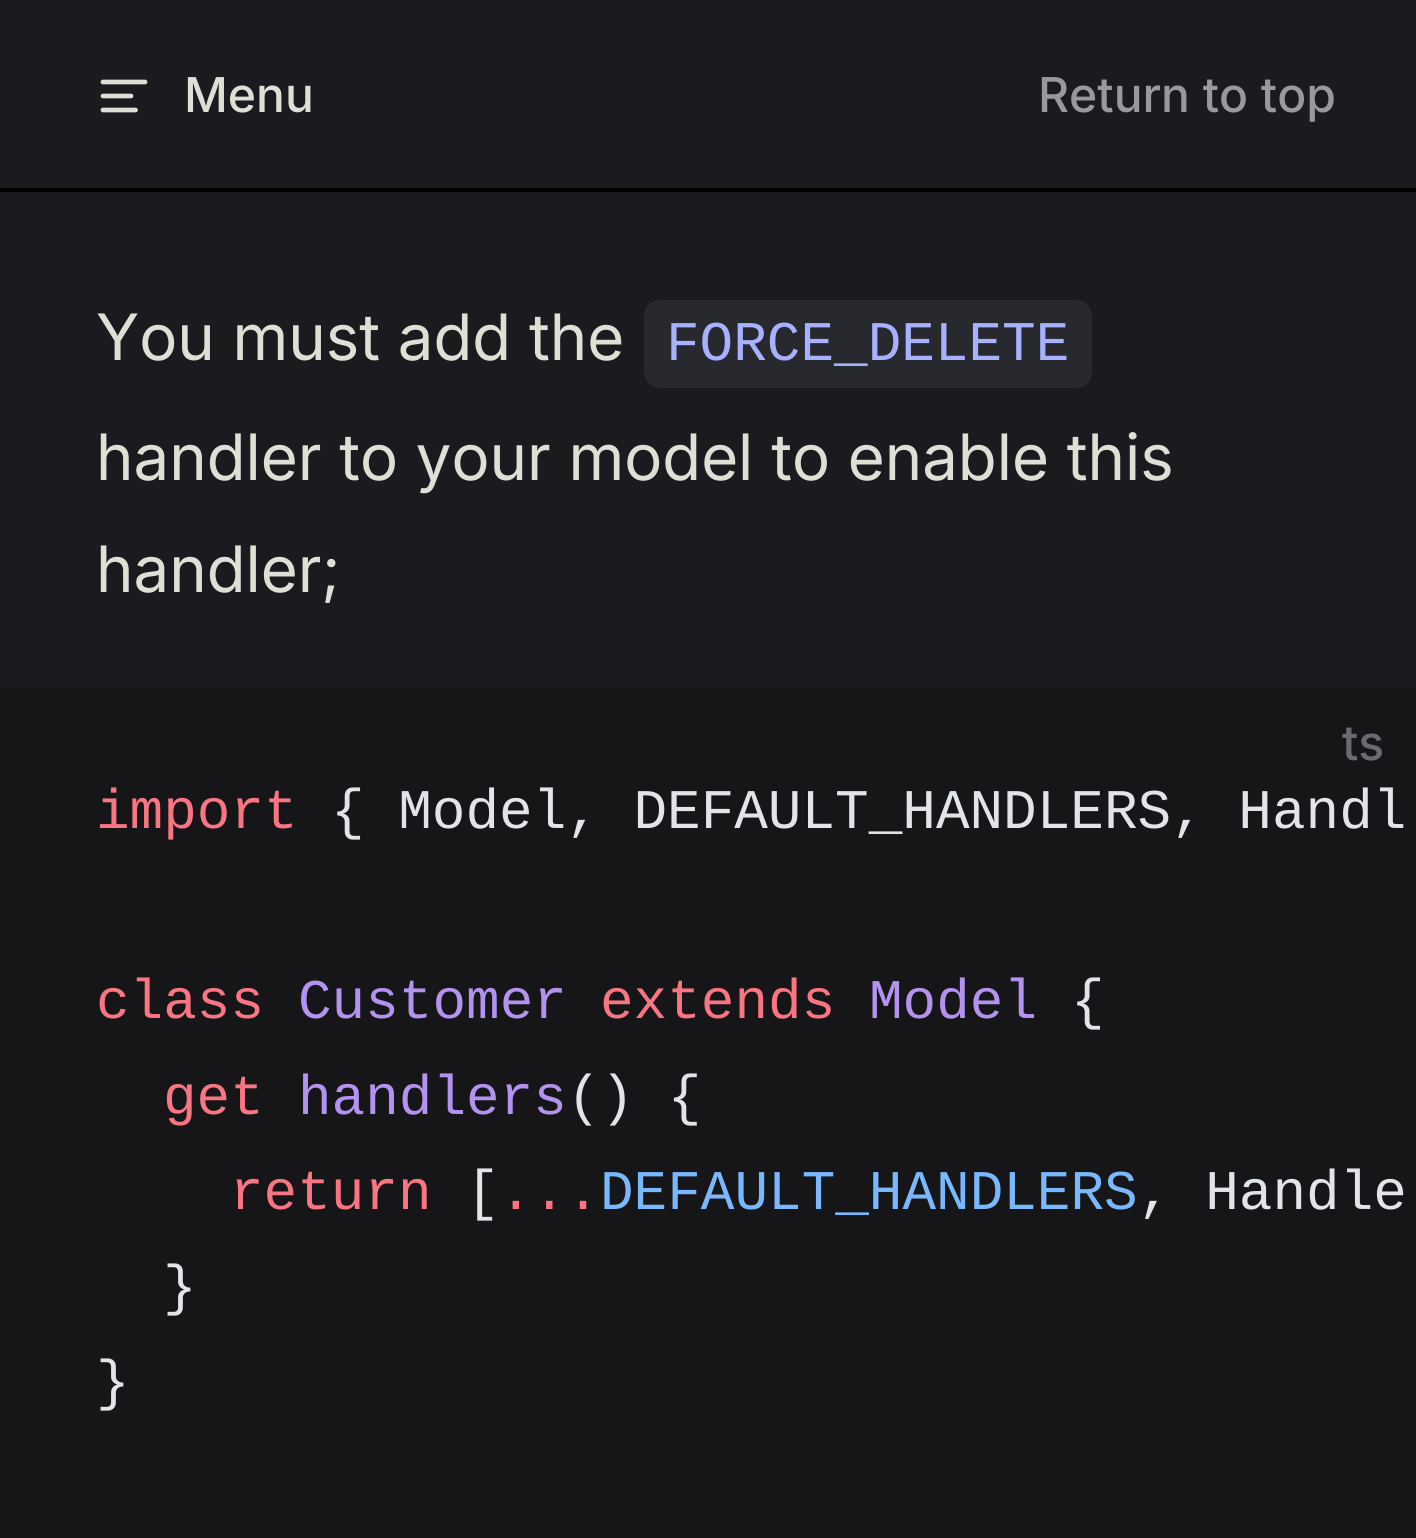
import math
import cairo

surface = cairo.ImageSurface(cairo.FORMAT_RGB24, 1416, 1538)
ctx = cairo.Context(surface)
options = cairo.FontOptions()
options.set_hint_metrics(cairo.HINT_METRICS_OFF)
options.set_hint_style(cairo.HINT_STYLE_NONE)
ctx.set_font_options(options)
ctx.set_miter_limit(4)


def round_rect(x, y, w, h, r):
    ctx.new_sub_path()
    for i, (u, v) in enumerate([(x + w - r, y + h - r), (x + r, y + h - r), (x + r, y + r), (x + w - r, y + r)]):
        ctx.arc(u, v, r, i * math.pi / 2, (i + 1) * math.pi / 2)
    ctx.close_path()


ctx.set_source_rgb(0.106, 0.106, 0.122)
ctx.paint()
ctx.set_source_rgb(0, 0, 0)
ctx.rectangle(0, 188, 1416, 4)
ctx.fill()
ctx.new_path()
ctx.move_to(145, 82)
ctx.line_to(103, 82)
ctx.move_to(131, 96)
ctx.line_to(103, 96)
ctx.move_to(135.5, 110)
ctx.line_to(103, 110)
ctx.set_source_rgb(0.875, 0.875, 0.839)
ctx.set_line_width(4.7)
ctx.set_line_cap(cairo.LINE_CAP_ROUND)
ctx.set_line_join(cairo.LINE_JOIN_ROUND)
ctx.stroke()
ctx.select_font_face("Inter Medium")
ctx.set_font_size(48)
ctx.move_to(184, 112)
ctx.show_text("Menu")
ctx.set_source_rgb(0.596, 0.596, 0.624)
ctx.move_to(1038, 112)
ctx.show_text("Return to top")
ctx.select_font_face("Inter")
ctx.set_font_size(64)
ctx.set_source_rgb(0.875, 0.875, 0.839)
ctx.move_to(96, 360)
ctx.show_text("You must add the")
ctx.set_source_rgb(0.153, 0.161, 0.184)
round_rect(644, 300, 448, 88, 16)
ctx.fill()
ctx.select_font_face("Liberation Mono")
ctx.set_font_size(56)
ctx.set_source_rgb(0.659, 0.694, 1)
ctx.move_to(666, 360)
ctx.show_text("FORCE_DELETE")
ctx.select_font_face("Inter")
ctx.set_font_size(64)
ctx.set_source_rgb(0.875, 0.875, 0.839)
ctx.move_to(96, 480)
ctx.show_text("handler to your model to enable this")
ctx.move_to(96, 592)
ctx.show_text("handler;")
ctx.set_source_rgb(0.086, 0.086, 0.094)
ctx.rectangle(0, 688, 1416, 850)
ctx.fill()
ctx.select_font_face("Inter Medium")
ctx.set_font_size(48)
ctx.set_source_rgb(0.416, 0.416, 0.443)
ctx.move_to(1342, 760)
ctx.show_text("ts")
ctx.select_font_face("Liberation Mono")
ctx.set_font_size(56)
ctx.set_source_rgb(0.976, 0.459, 0.514)
ctx.move_to(96, 828)
ctx.show_text("import")
ctx.set_source_rgb(0.882, 0.894, 0.91)
ctx.move_to(331, 828)
ctx.show_text("{ Model, DEFAULT_HANDLERS, Handl")
ctx.set_source_rgb(0.976, 0.459, 0.514)
ctx.move_to(96, 1018)
ctx.show_text("class")
ctx.set_source_rgb(0.702, 0.573, 0.941)
ctx.move_to(298, 1018)
ctx.show_text("Customer")
ctx.set_source_rgb(0.976, 0.459, 0.514)
ctx.move_to(600, 1018)
ctx.show_text("extends")
ctx.set_source_rgb(0.702, 0.573, 0.941)
ctx.move_to(869, 1018)
ctx.show_text("Model")
ctx.set_source_rgb(0.882, 0.894, 0.91)
ctx.move_to(1071, 1018)
ctx.show_text("{")
ctx.set_source_rgb(0.976, 0.459, 0.514)
ctx.move_to(163, 1114)
ctx.show_text("get")
ctx.set_source_rgb(0.702, 0.573, 0.941)
ctx.move_to(298, 1114)
ctx.show_text("handlers")
ctx.set_source_rgb(0.882, 0.894, 0.91)
ctx.move_to(567, 1114)
ctx.show_text("() {")
ctx.set_source_rgb(0.976, 0.459, 0.514)
ctx.move_to(230, 1209)
ctx.show_text("return")
ctx.set_source_rgb(0.882, 0.894, 0.91)
ctx.move_to(466, 1209)
ctx.show_text("[")
ctx.set_source_rgb(0.976, 0.459, 0.514)
ctx.move_to(499, 1209)
ctx.show_text("...")
ctx.set_source_rgb(0.475, 0.722, 1)
ctx.move_to(600, 1209)
ctx.show_text("DEFAULT_HANDLERS")
ctx.set_source_rgb(0.882, 0.894, 0.91)
ctx.move_to(1138, 1209)
ctx.show_text(", Handle")
ctx.move_to(163, 1304)
ctx.show_text("}")
ctx.move_to(96, 1399)
ctx.show_text("}")
surface.write_to_png("page.png")
